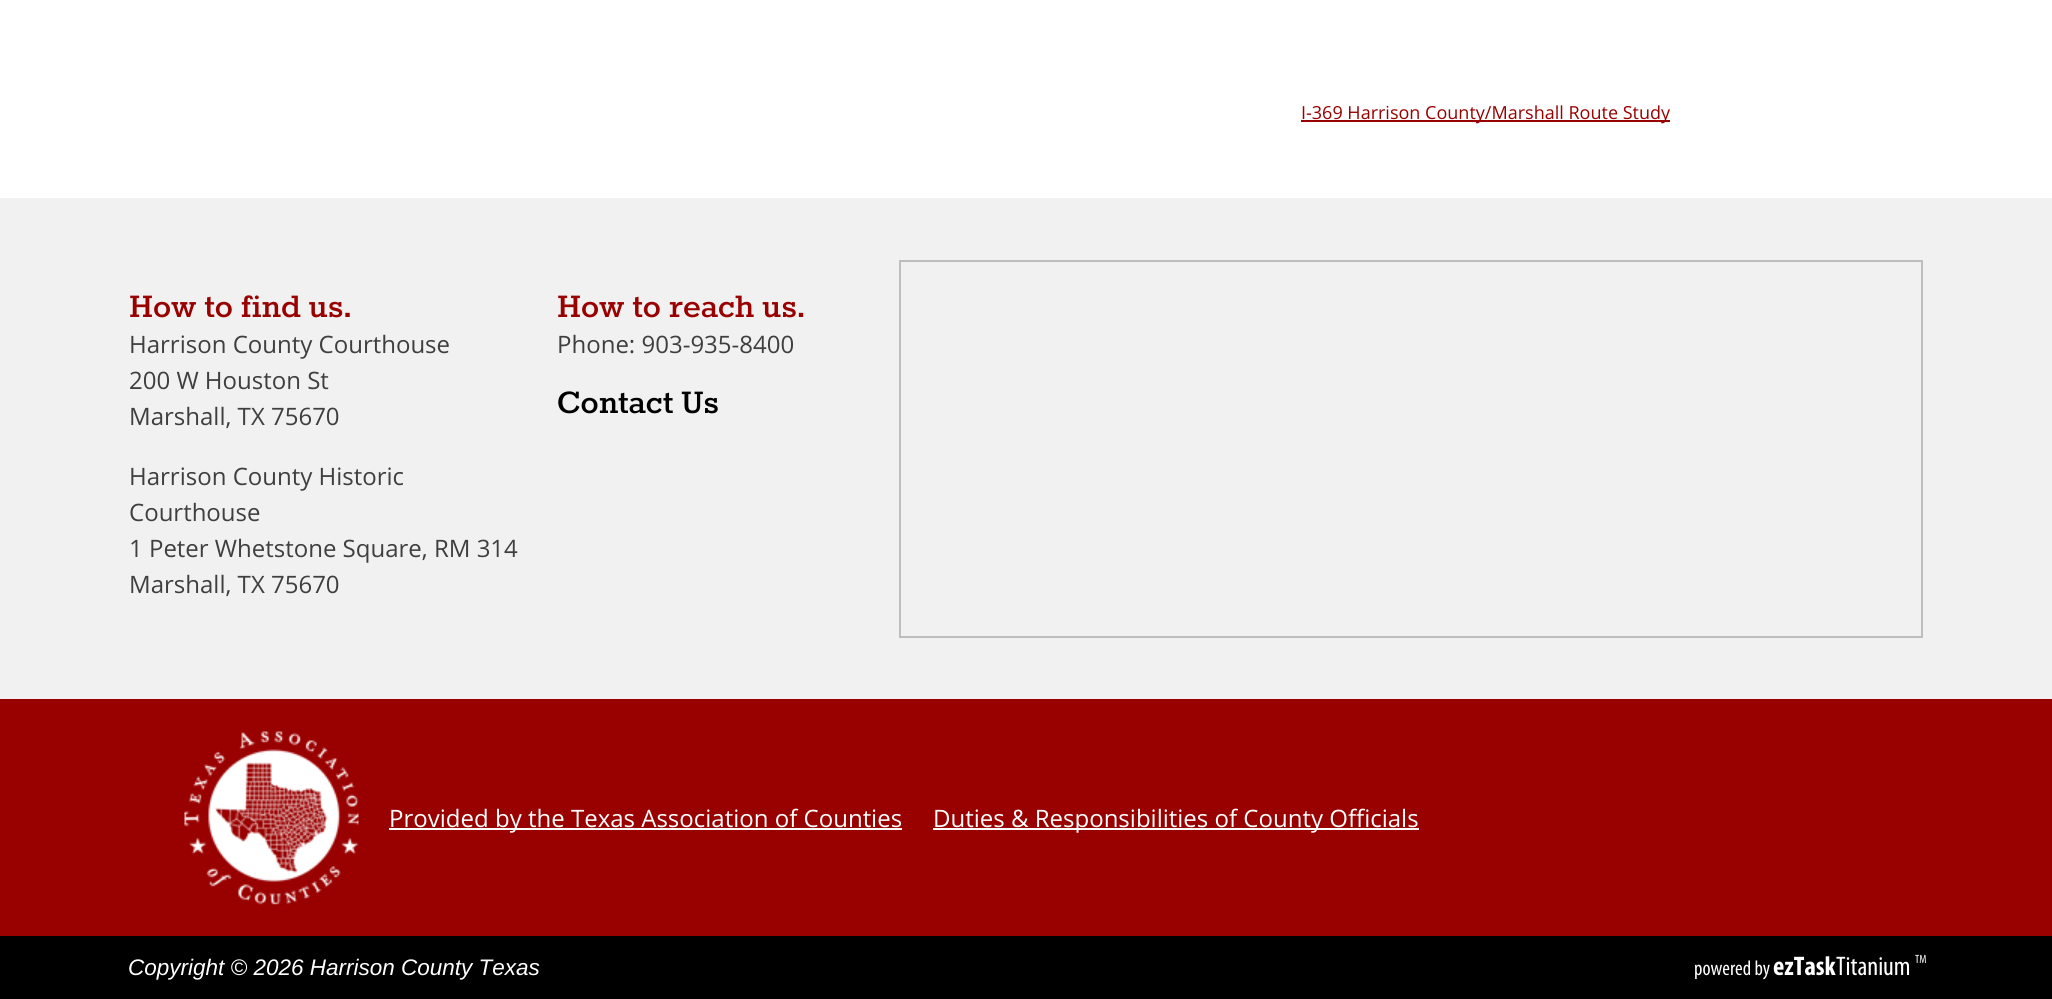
import math
import cairo

surface = cairo.ImageSurface(cairo.FORMAT_RGB24, 2052, 999)
ctx = cairo.Context(surface)
options = cairo.FontOptions()
options.set_hint_metrics(cairo.HINT_METRICS_OFF)
options.set_hint_style(cairo.HINT_STYLE_NONE)
ctx.set_font_options(options)
ctx.set_miter_limit(4)


def picture(path, x, y, w, h):
    ctx.save()
    ctx.set_source_surface(cairo.ImageSurface.create_from_png(path), x, y)
    ctx.rectangle(x, y, w, h)
    ctx.fill()
    ctx.restore()


ctx.set_source_rgb(1, 1, 1)
ctx.paint()
ctx.set_source_rgb(0.6, 0, 0)
ctx.rectangle(1301, 120, 369, 2)
ctx.fill()
ctx.select_font_face("Open Sans")
ctx.set_font_size(18)
ctx.move_to(1301, 119)
ctx.show_text("I-369 Harrison County/Marshall Route Study")
ctx.set_source_rgb(0.945, 0.945, 0.945)
ctx.rectangle(0, 198, 2052, 501)
ctx.fill()
ctx.select_font_face("Rokkitt", cairo.FONT_SLANT_NORMAL, cairo.FONT_WEIGHT_BOLD)
ctx.set_font_size(36)
ctx.set_source_rgb(0.6, 0, 0)
ctx.move_to(129, 317)
ctx.show_text("How to find us.")
ctx.select_font_face("Open Sans")
ctx.set_font_size(24)
ctx.set_source_rgb(0.247, 0.247, 0.247)
ctx.move_to(129, 353)
ctx.show_text("Harrison County Courthouse")
ctx.move_to(129, 389)
ctx.show_text("200 W Houston St")
ctx.move_to(129, 425)
ctx.show_text("Marshall, TX 75670")
ctx.move_to(129, 485)
ctx.show_text("Harrison County Historic")
ctx.move_to(129, 521)
ctx.show_text("Courthouse")
ctx.move_to(129, 557)
ctx.show_text("1 Peter Whetstone Square, RM 314")
ctx.move_to(129, 593)
ctx.show_text("Marshall, TX 75670")
ctx.select_font_face("Rokkitt", cairo.FONT_SLANT_NORMAL, cairo.FONT_WEIGHT_BOLD)
ctx.set_font_size(36)
ctx.set_source_rgb(0.6, 0, 0)
ctx.move_to(557, 317)
ctx.show_text("How to reach us.")
ctx.select_font_face("Open Sans")
ctx.set_font_size(24)
ctx.set_source_rgb(0.247, 0.247, 0.247)
ctx.move_to(557, 353)
ctx.show_text("Phone: 903-935-8400")
ctx.select_font_face("Rokkitt", cairo.FONT_SLANT_NORMAL, cairo.FONT_WEIGHT_BOLD)
ctx.set_font_size(36)
ctx.set_source_rgb(0, 0, 0)
ctx.move_to(557, 413)
ctx.show_text("Contact Us")
ctx.rectangle(900, 261, 1022, 376)
ctx.set_source_rgb(0.745, 0.745, 0.745)
ctx.stroke()
ctx.set_source_rgb(0.6, 0, 0)
ctx.rectangle(0, 699, 2052, 237)
ctx.fill()
picture("img1.png", 184, 731, 175, 174)
ctx.set_source_rgb(1, 1, 1)
ctx.rectangle(389, 828, 513, 2)
ctx.fill()
ctx.select_font_face("Open Sans")
ctx.set_font_size(24)
ctx.move_to(389, 827)
ctx.show_text("Provided by the Texas Association of Counties")
ctx.rectangle(933, 828, 486, 2)
ctx.fill()
ctx.move_to(933, 827)
ctx.show_text("Duties & Responsibilities of County Officials")
ctx.set_source_rgb(0, 0, 0)
ctx.rectangle(0, 936, 2052, 63)
ctx.fill()
ctx.select_font_face("Liberation Sans", cairo.FONT_SLANT_ITALIC)
ctx.set_font_size(22.5)
ctx.set_source_rgb(1, 1, 1)
ctx.move_to(128, 975)
ctx.show_text("Copyright © 2026 Harrison County Texas")
ctx.select_font_face("Myriad")
ctx.set_font_size(21)
ctx.move_to(1694, 975)
ctx.show_text("powered by")
ctx.select_font_face("Myriad", cairo.FONT_SLANT_NORMAL, cairo.FONT_WEIGHT_BOLD)
ctx.set_font_size(27)
ctx.move_to(1773, 975)
ctx.show_text("ezTask")
ctx.select_font_face("Myriad")
ctx.move_to(1836, 975)
ctx.show_text("Titanium")
ctx.set_font_size(12)
ctx.move_to(1915, 963)
ctx.show_text("TM")
surface.write_to_png("page.png")
